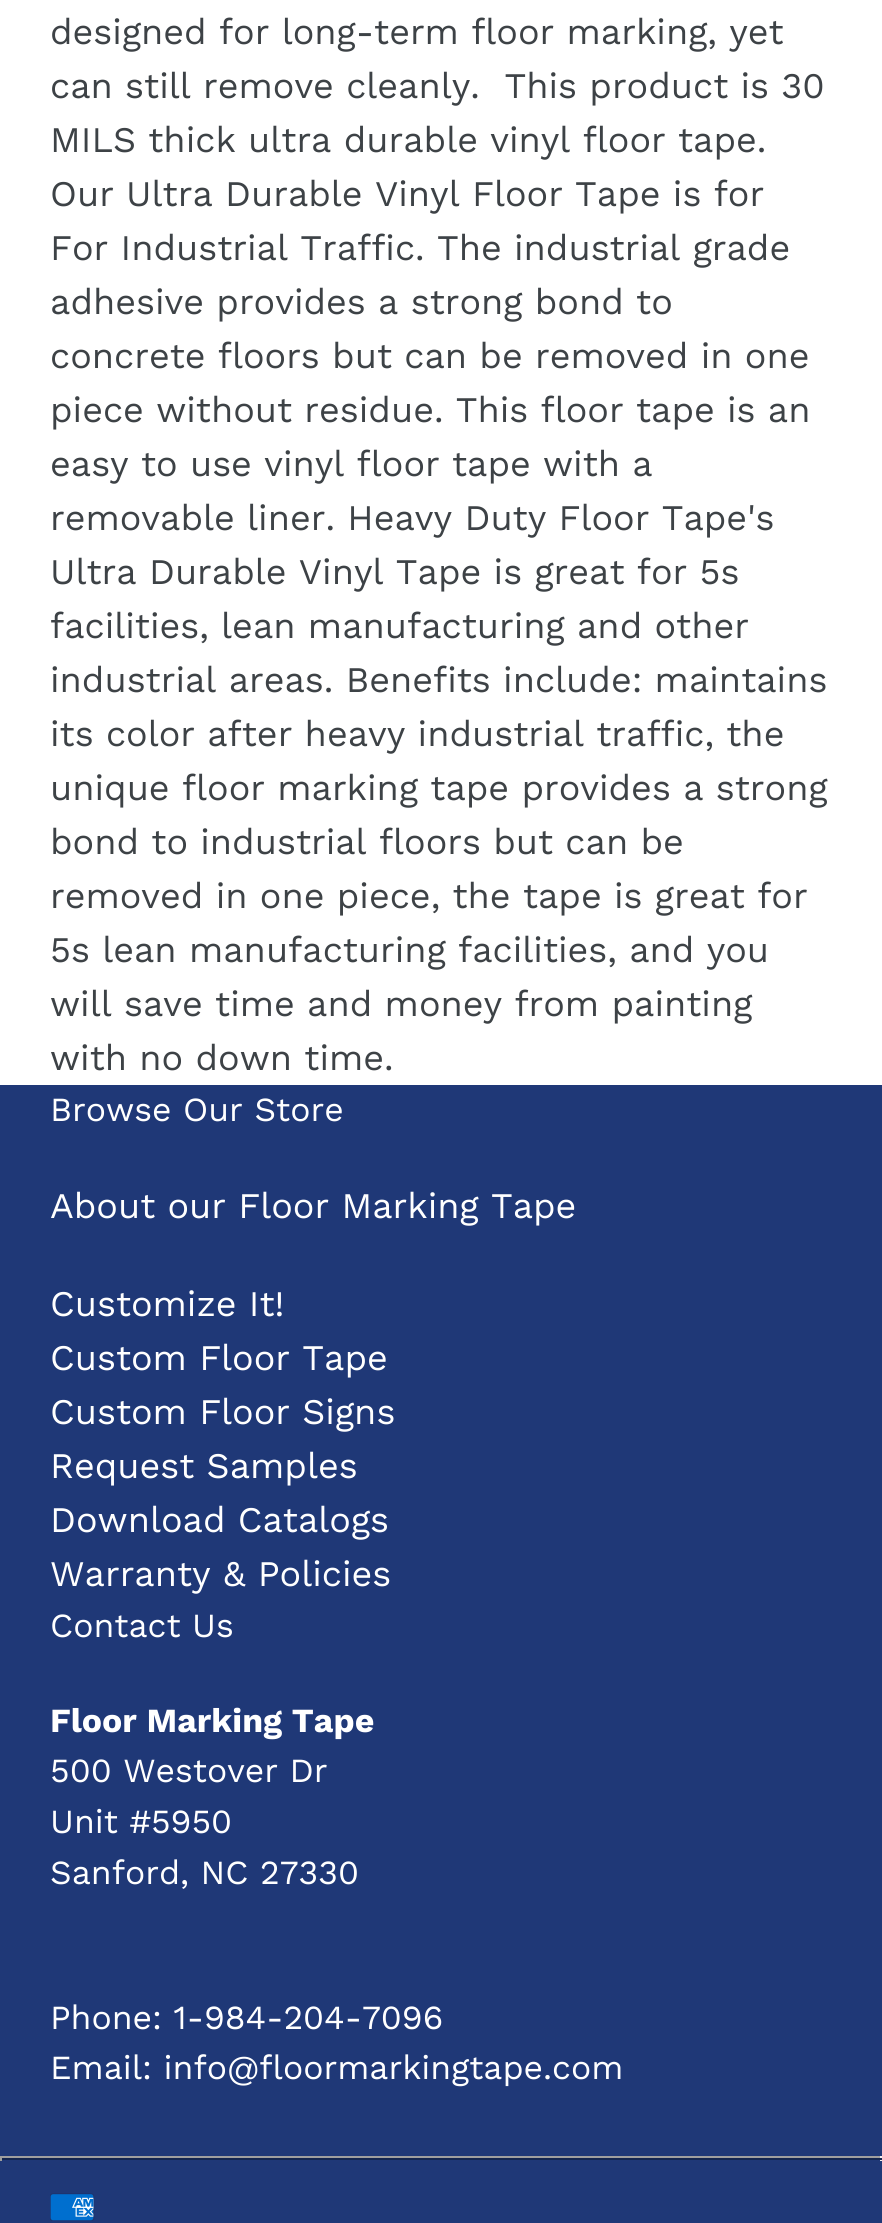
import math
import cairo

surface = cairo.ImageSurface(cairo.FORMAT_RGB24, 882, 2223)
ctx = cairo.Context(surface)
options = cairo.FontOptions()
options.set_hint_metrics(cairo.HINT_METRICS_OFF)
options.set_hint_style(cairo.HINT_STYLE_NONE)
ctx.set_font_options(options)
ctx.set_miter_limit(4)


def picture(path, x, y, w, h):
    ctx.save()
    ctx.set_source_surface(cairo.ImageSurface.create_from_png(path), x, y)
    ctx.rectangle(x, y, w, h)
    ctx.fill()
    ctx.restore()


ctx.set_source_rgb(1, 1, 1)
ctx.paint()
ctx.select_font_face("Work Sans")
ctx.set_font_size(36)
ctx.set_source_rgb(0.239, 0.259, 0.275)
ctx.move_to(50, 44)
ctx.show_text("designed for long-term floor marking, yet")
ctx.move_to(50, 98)
ctx.show_text("can still remove cleanly.  This product is 30")
ctx.move_to(50, 152)
ctx.show_text("MILS thick ultra durable vinyl floor tape.")
ctx.move_to(50, 206)
ctx.show_text("Our Ultra Durable Vinyl Floor Tape is for")
ctx.move_to(50, 260)
ctx.show_text("For Industrial Traffic. The industrial grade")
ctx.move_to(50, 314)
ctx.show_text("adhesive provides a strong bond to")
ctx.move_to(50, 368)
ctx.show_text("concrete floors but can be removed in one")
ctx.move_to(50, 422)
ctx.show_text("piece without residue. This floor tape is an")
ctx.move_to(50, 476)
ctx.show_text("easy to use vinyl floor tape with a")
ctx.move_to(50, 530)
ctx.show_text("removable liner. Heavy Duty Floor Tape's")
ctx.move_to(50, 584)
ctx.show_text("Ultra Durable Vinyl Tape is great for 5s")
ctx.move_to(50, 638)
ctx.show_text("facilities, lean manufacturing and other")
ctx.move_to(50, 692)
ctx.show_text("industrial areas. Benefits include: maintains")
ctx.move_to(50, 746)
ctx.show_text("its color after heavy industrial traffic, the")
ctx.move_to(50, 800)
ctx.show_text("unique floor marking tape provides a strong")
ctx.move_to(50, 854)
ctx.show_text("bond to industrial floors but can be")
ctx.move_to(50, 908)
ctx.show_text("removed in one piece, the tape is great for")
ctx.move_to(50, 962)
ctx.show_text("5s lean manufacturing facilities, and you")
ctx.move_to(50, 1016)
ctx.show_text("will save time and money from painting")
ctx.move_to(50, 1070)
ctx.show_text("with no down time.")
ctx.set_source_rgb(0.122, 0.22, 0.467)
ctx.rectangle(0, 1085, 882, 1138)
ctx.fill()
ctx.set_font_size(33.75)
ctx.set_source_rgb(1, 1, 1)
ctx.move_to(50, 1121)
ctx.show_text("Browse Our Store")
ctx.set_font_size(36)
ctx.move_to(50, 1218)
ctx.show_text("About our Floor Marking Tape")
ctx.move_to(50, 1316)
ctx.show_text("Customize It!")
ctx.move_to(50, 1370)
ctx.show_text("Custom Floor Tape")
ctx.move_to(50, 1424)
ctx.show_text("Custom Floor Signs")
ctx.move_to(50, 1478)
ctx.show_text("Request Samples")
ctx.move_to(50, 1532)
ctx.show_text("Download Catalogs")
ctx.move_to(50, 1586)
ctx.show_text("Warranty & Policies")
ctx.set_font_size(33.75)
ctx.move_to(50, 1637)
ctx.show_text("Contact Us")
ctx.select_font_face("Work Sans", cairo.FONT_SLANT_NORMAL, cairo.FONT_WEIGHT_BOLD)
ctx.move_to(50, 1732)
ctx.show_text("Floor Marking Tape")
ctx.select_font_face("Work Sans")
ctx.move_to(50, 1782)
ctx.show_text("500 Westover Dr")
ctx.move_to(50, 1833)
ctx.show_text("Unit #5950")
ctx.move_to(50, 1884)
ctx.show_text("Sanford, NC 27330")
ctx.move_to(50, 2029)
ctx.show_text("Phone: 1-984-204-7096")
ctx.move_to(50, 2079)
ctx.show_text("Email: info@floormarkingtape.com")
ctx.set_source_rgb(0.624, 0.624, 0.624)
ctx.rectangle(0, 2156, 882, 2)
ctx.fill()
ctx.set_source_rgb(0.933, 0.933, 0.933)
ctx.rectangle(880, 2156, 2, 5)
ctx.fill()
ctx.set_source_rgb(0.078, 0.145, 0.31)
ctx.rectangle(0, 2158, 882, 2)
ctx.fill()
ctx.set_source_rgb(0.624, 0.624, 0.624)
ctx.rectangle(0, 2156, 2, 5)
ctx.fill()
picture("img1.png", 50, 2193, 45, 28)
surface.write_to_png("page.png")
